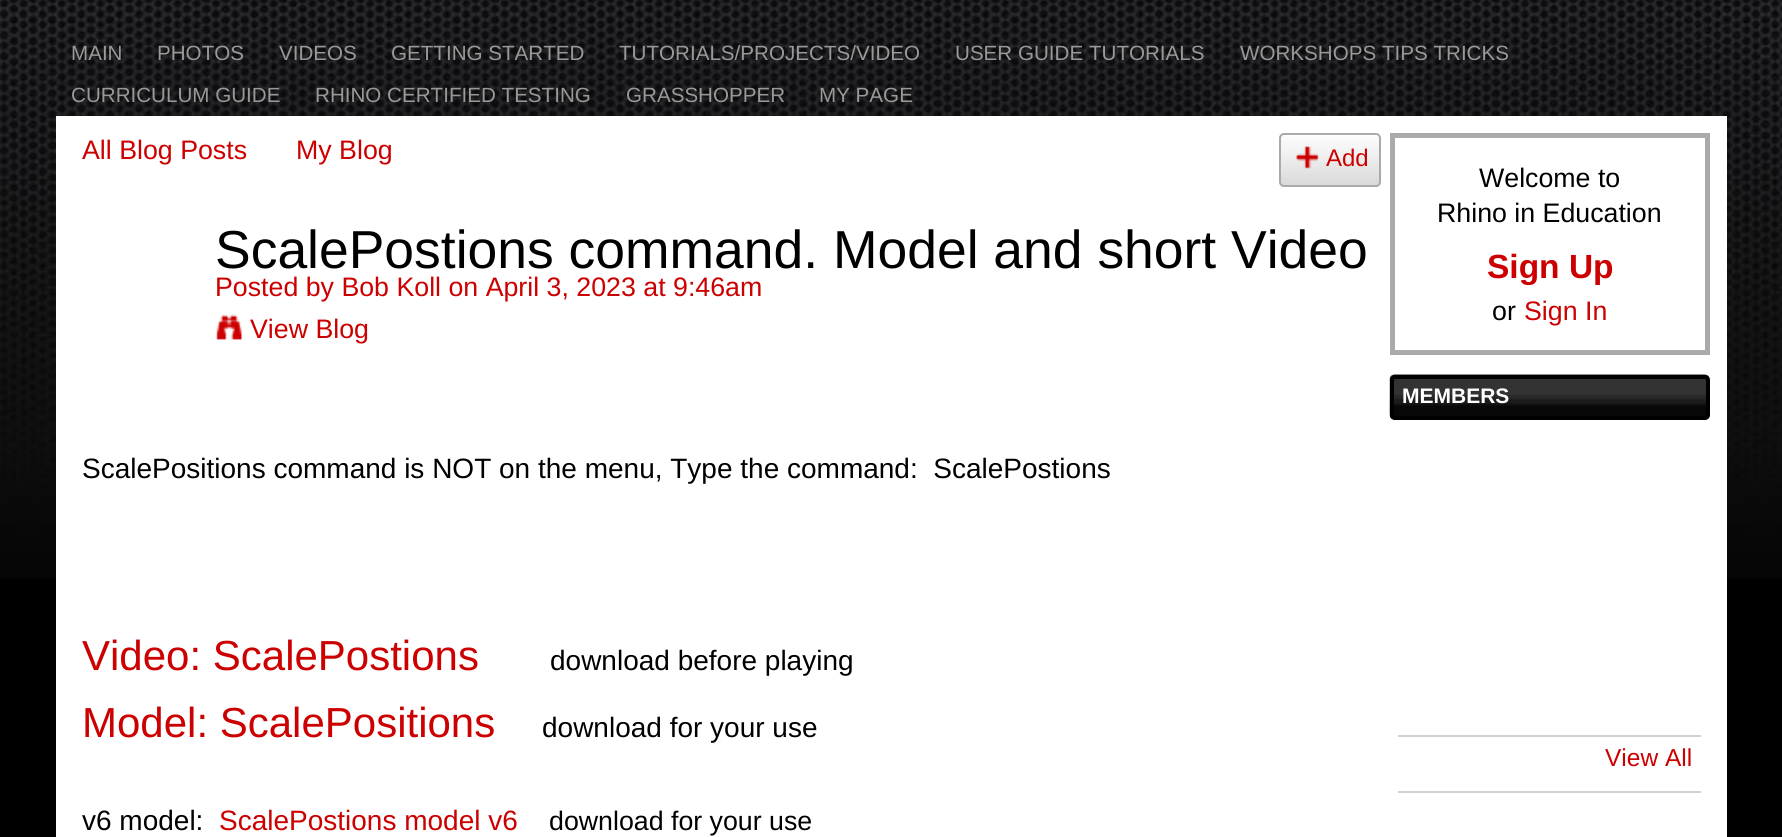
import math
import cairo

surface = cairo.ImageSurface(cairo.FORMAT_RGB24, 1782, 837)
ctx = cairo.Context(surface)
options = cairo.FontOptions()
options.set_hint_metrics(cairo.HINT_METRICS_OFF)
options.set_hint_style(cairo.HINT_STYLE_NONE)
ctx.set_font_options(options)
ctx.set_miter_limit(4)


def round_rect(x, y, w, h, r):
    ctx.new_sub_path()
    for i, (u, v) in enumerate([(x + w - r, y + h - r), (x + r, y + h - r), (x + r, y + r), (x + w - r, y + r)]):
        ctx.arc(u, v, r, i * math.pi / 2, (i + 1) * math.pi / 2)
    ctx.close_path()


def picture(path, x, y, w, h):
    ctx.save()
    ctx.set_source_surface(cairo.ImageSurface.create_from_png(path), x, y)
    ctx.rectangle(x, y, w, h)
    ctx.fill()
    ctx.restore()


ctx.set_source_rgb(0, 0, 0)
ctx.paint()
picture("img1.png", 0, 0, 1782, 579)
ctx.select_font_face("Liberation Sans")
ctx.set_font_size(20.6)
ctx.set_source_rgb(0.6, 0.6, 0.6)
ctx.move_to(71, 60)
ctx.show_text("MAIN")
ctx.move_to(157, 60)
ctx.show_text("PHOTOS")
ctx.move_to(279, 60)
ctx.show_text("VIDEOS")
ctx.move_to(391, 60)
ctx.show_text("GETTING STARTED")
ctx.move_to(619, 60)
ctx.show_text("TUTORIALS/PROJECTS/VIDEO")
ctx.move_to(955, 60)
ctx.show_text("USER GUIDE TUTORIALS")
ctx.move_to(1240, 60)
ctx.show_text("WORKSHOPS TIPS TRICKS")
ctx.move_to(71, 102)
ctx.show_text("CURRICULUM GUIDE")
ctx.move_to(315, 102)
ctx.show_text("RHINO CERTIFIED TESTING")
ctx.move_to(626, 102)
ctx.show_text("GRASSHOPPER")
ctx.move_to(819, 102)
ctx.show_text("MY PAGE")
ctx.set_source_rgb(1, 1, 1)
ctx.rectangle(56, 116, 1671, 721)
ctx.fill()
ctx.set_font_size(26.75)
ctx.set_source_rgb(0.8, 0, 0)
ctx.move_to(82, 159)
ctx.show_text("All Blog Posts")
ctx.move_to(296, 159)
ctx.show_text("My Blog")
picture("img2.png", 1279, 136, 102, 51)
round_rect(1280, 134, 100, 52, 4)
ctx.set_source_rgb(0.667, 0.667, 0.667)
ctx.stroke()
picture("img3.png", 1296, 146, 23, 23)
ctx.set_font_size(24)
ctx.set_source_rgb(0.8, 0, 0)
ctx.move_to(1326, 166)
ctx.show_text("Add")
ctx.set_font_size(53.45)
ctx.set_source_rgb(0, 0, 0)
ctx.move_to(215, 268)
ctx.show_text("ScalePostions command. Model and short Video")
ctx.set_font_size(26.75)
ctx.set_source_rgb(0.8, 0, 0)
ctx.move_to(215, 296)
ctx.show_text("Posted by Bob Koll on April 3, 2023 at 9:46am")
picture("img4.png", 216, 314, 26, 26)
ctx.move_to(250, 338)
ctx.show_text("View Blog")
ctx.set_font_size(28)
ctx.set_source_rgb(0, 0, 0)
ctx.move_to(82, 478)
ctx.show_text("ScalePositions command is NOT on the menu, Type the command:  ScalePostions")
ctx.set_font_size(42)
ctx.set_source_rgb(0.8, 0, 0)
ctx.move_to(82, 670)
ctx.show_text("Video: ScalePostions")
ctx.set_font_size(28)
ctx.set_source_rgb(0, 0, 0)
ctx.move_to(550, 670)
ctx.show_text("download before playing")
ctx.set_font_size(42)
ctx.set_source_rgb(0.8, 0, 0)
ctx.move_to(82, 737)
ctx.show_text("Model: ScalePositions")
ctx.set_font_size(28)
ctx.set_source_rgb(0, 0, 0)
ctx.move_to(542, 737)
ctx.show_text("download for your use")
ctx.move_to(82, 830)
ctx.show_text("v6 model:")
ctx.set_source_rgb(0.8, 0, 0)
ctx.move_to(219, 830)
ctx.show_text("ScalePostions model v6")
ctx.set_font_size(26.75)
ctx.set_source_rgb(0, 0, 0)
ctx.move_to(549, 830)
ctx.show_text("download for your use")
ctx.rectangle(1392.5, 135.5, 315, 217)
ctx.set_source_rgb(0.667, 0.667, 0.667)
ctx.set_line_width(5)
ctx.stroke()
ctx.set_source_rgb(0, 0, 0)
ctx.move_to(1479, 187)
ctx.show_text("Welcome to")
ctx.move_to(1437, 222)
ctx.show_text("Rhino in Education")
ctx.select_font_face("Liberation Sans", cairo.FONT_SLANT_NORMAL, cairo.FONT_WEIGHT_BOLD)
ctx.set_font_size(33.5)
ctx.set_source_rgb(0.8, 0, 0)
ctx.move_to(1487, 278)
ctx.show_text("Sign Up")
ctx.select_font_face("Liberation Sans")
ctx.set_font_size(26.75)
ctx.set_source_rgb(0, 0, 0)
ctx.move_to(1492, 320)
ctx.show_text("or")
ctx.set_source_rgb(0.8, 0, 0)
ctx.move_to(1524, 320)
ctx.show_text("Sign In")
picture("img5.png", 1389, 374, 321, 46)
round_rect(1392, 377, 316, 41, 3)
ctx.set_source_rgb(0, 0, 0)
ctx.set_line_width(4)
ctx.stroke()
ctx.select_font_face("Liberation Sans", cairo.FONT_SLANT_NORMAL, cairo.FONT_WEIGHT_BOLD)
ctx.set_font_size(21)
ctx.set_source_rgb(1, 1, 1)
ctx.move_to(1402, 403)
ctx.show_text("MEMBERS")
ctx.set_source_rgb(0.824, 0.824, 0.824)
ctx.rectangle(1398, 735, 303, 2)
ctx.fill()
ctx.rectangle(1398, 791, 303, 2)
ctx.fill()
ctx.select_font_face("Liberation Sans")
ctx.set_font_size(24.5)
ctx.set_source_rgb(0.8, 0, 0)
ctx.move_to(1605, 766)
ctx.show_text("View All")
surface.write_to_png("page.png")
